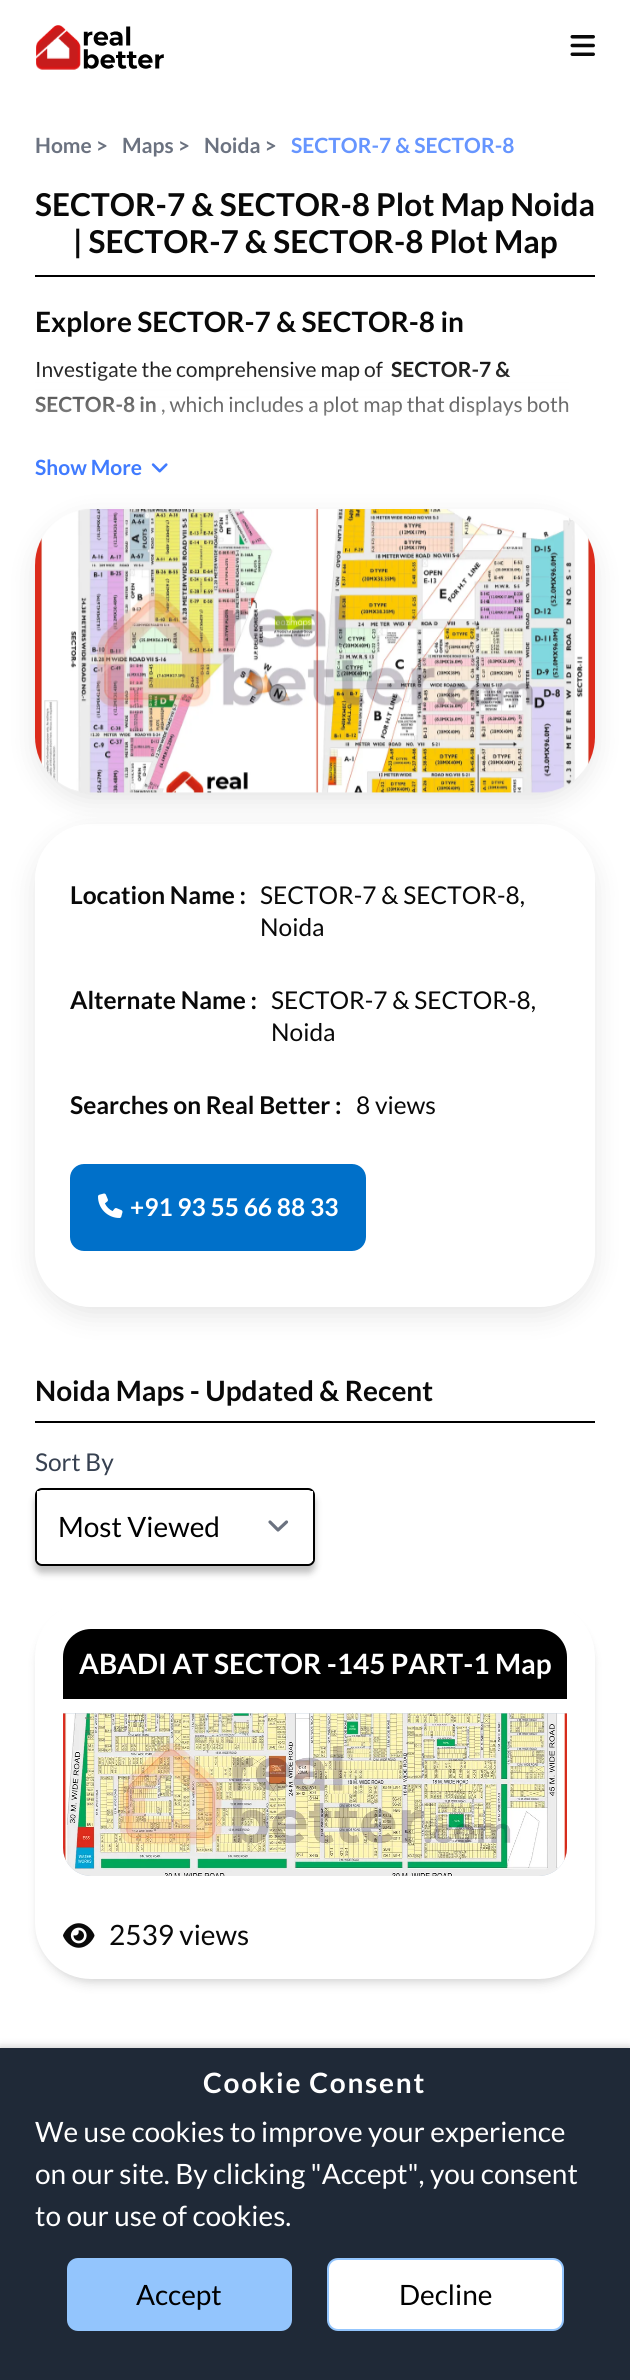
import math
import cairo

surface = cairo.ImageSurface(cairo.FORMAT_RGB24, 630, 2380)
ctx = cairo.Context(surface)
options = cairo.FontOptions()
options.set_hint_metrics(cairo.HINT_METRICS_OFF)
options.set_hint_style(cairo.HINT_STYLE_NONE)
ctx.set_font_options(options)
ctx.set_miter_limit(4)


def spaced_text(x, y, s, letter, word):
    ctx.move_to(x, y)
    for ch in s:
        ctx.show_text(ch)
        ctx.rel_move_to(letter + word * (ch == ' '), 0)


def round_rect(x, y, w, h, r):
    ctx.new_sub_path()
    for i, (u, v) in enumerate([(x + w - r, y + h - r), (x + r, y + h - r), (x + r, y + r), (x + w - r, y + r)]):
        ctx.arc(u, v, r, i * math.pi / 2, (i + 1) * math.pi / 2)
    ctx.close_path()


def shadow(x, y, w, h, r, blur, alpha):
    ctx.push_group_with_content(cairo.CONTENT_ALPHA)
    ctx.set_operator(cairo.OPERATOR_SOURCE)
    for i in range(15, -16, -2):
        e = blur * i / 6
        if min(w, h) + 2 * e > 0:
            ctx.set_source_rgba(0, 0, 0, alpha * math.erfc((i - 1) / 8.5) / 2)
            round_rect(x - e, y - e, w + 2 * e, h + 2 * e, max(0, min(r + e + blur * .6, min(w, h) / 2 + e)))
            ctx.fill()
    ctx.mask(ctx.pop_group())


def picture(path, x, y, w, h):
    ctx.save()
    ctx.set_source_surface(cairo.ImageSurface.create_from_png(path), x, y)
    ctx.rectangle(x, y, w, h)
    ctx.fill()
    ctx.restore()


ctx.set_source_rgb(1, 1, 1)
ctx.paint()
picture("img1.png", 36, 25, 128, 45)
picture("img2.png", 570, 35, 25, 21)
ctx.select_font_face("Lato", cairo.FONT_SLANT_NORMAL, cairo.FONT_WEIGHT_BOLD)
ctx.set_font_size(21)
ctx.set_source_rgb(0.42, 0.447, 0.502)
ctx.move_to(35, 153)
ctx.show_text("Home >")
ctx.move_to(122, 153)
ctx.show_text("Maps >")
ctx.move_to(204, 153)
ctx.show_text("Noida >")
ctx.set_source_rgb(0.4, 0.584, 1)
ctx.move_to(291, 153)
ctx.show_text("SECTOR-7 & SECTOR-8")
ctx.set_source_rgb(0, 0, 0)
ctx.rectangle(35, 275, 560, 2)
ctx.fill()
ctx.set_font_size(31.5)
ctx.set_source_rgb(0.039, 0.039, 0.039)
ctx.move_to(35, 216)
ctx.show_text("SECTOR-7 & SECTOR-8 Plot Map Noida")
ctx.move_to(73, 253)
ctx.show_text("| SECTOR-7 & SECTOR-8 Plot Map")
ctx.set_font_size(28)
ctx.move_to(35, 332)
ctx.show_text("Explore SECTOR-7 & SECTOR-8 in")
ctx.select_font_face("Lato")
ctx.set_font_size(21)
ctx.move_to(35, 377)
ctx.show_text("Investigate the comprehensive map of")
ctx.select_font_face("Lato", cairo.FONT_SLANT_NORMAL, cairo.FONT_WEIGHT_BOLD)
ctx.move_to(391, 377)
ctx.show_text("SECTOR-7 &")
ctx.move_to(35, 412)
ctx.show_text("SECTOR-8 in")
ctx.select_font_face("Lato")
ctx.move_to(161, 412)
ctx.show_text(", which includes a plot map that displays both")
gradient = cairo.LinearGradient(315, 357, 315, 497)
gradient.add_color_stop_rgba(0, 0.996, 0.996, 0.996, 0)
gradient.add_color_stop_rgba(0.85, 0.996, 0.996, 0.996, 1)
gradient.add_color_stop_rgba(1, 1, 1, 1, 1)
gradient.add_color_stop_rgba(1, 0.965, 0.965, 0.965, 1)
ctx.set_source(gradient)
ctx.rectangle(35, 361, 534, 55)
ctx.fill()
ctx.select_font_face("Lato", cairo.FONT_SLANT_NORMAL, cairo.FONT_WEIGHT_BOLD)
ctx.set_source_rgb(0.251, 0.482, 1)
ctx.move_to(35, 475)
ctx.show_text("Show More")
picture("img3.png", 151, 463, 17, 10)
ctx.set_source_rgb(0, 0, 0)
shadow(35, 518, 560, 284, 56, 13, 0.1)
picture("img4.png", 35, 509, 560, 284)
ctx.save()
ctx.set_fill_rule(cairo.FILL_RULE_EVEN_ODD)
ctx.new_path()
ctx.move_to(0, 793)
ctx.line_to(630, 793)
ctx.line_to(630, 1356)
ctx.line_to(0, 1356)
ctx.close_path()
ctx.move_to(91, 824)
ctx.line_to(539, 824)
ctx.curve_to(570, 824, 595, 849, 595, 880)
ctx.line_to(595, 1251)
ctx.curve_to(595, 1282, 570, 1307, 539, 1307)
ctx.line_to(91, 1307)
ctx.curve_to(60, 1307, 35, 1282, 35, 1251)
ctx.line_to(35, 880)
ctx.curve_to(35, 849, 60, 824, 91, 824)
ctx.close_path()
ctx.clip()
shadow(35, 833, 560, 483, 56, 13, 0.1)
ctx.restore()
ctx.set_font_size(24.5)
ctx.set_source_rgb(0.039, 0.039, 0.039)
ctx.move_to(70, 904)
ctx.show_text("Location Name :")
ctx.select_font_face("Lato")
ctx.move_to(260, 904)
ctx.show_text("SECTOR-7 & SECTOR-8,")
ctx.move_to(260, 936)
ctx.show_text("Noida")
ctx.select_font_face("Lato", cairo.FONT_SLANT_NORMAL, cairo.FONT_WEIGHT_BOLD)
ctx.move_to(70, 1009)
ctx.show_text("Alternate Name :")
ctx.select_font_face("Lato")
ctx.move_to(271, 1009)
ctx.show_text("SECTOR-7 & SECTOR-8,")
ctx.move_to(271, 1041)
ctx.show_text("Noida")
ctx.select_font_face("Lato", cairo.FONT_SLANT_NORMAL, cairo.FONT_WEIGHT_BOLD)
ctx.move_to(70, 1114)
ctx.show_text("Searches on Real Better :")
ctx.select_font_face("Lato")
ctx.move_to(356, 1114)
ctx.show_text("8 views")
ctx.set_source_rgb(0, 0.439, 0.788)
round_rect(70, 1164, 296, 87, 14)
ctx.fill()
picture("img5.png", 98, 1193, 25, 25)
ctx.select_font_face("Lato", cairo.FONT_SLANT_NORMAL, cairo.FONT_WEIGHT_BOLD)
ctx.set_source_rgb(1, 1, 1)
ctx.move_to(130, 1216)
ctx.show_text("+91 93 55 66 88 33")
ctx.set_source_rgb(0, 0, 0)
ctx.rectangle(35, 1421, 560, 2)
ctx.fill()
ctx.set_font_size(28)
ctx.set_source_rgb(0.039, 0.039, 0.039)
ctx.move_to(35, 1401)
ctx.show_text("Noida Maps - Updated & Recent")
ctx.select_font_face("Lato")
ctx.set_font_size(24.5)
ctx.set_source_rgb(0.216, 0.255, 0.318)
ctx.move_to(35, 1471)
ctx.show_text("Sort By")
ctx.set_source_rgb(0, 0, 0)
shadow(35, 1495, 280, 78, 7, 3.5, 0.25)
ctx.set_source_rgb(1, 1, 1)
round_rect(36, 1489, 278, 76, 6)
ctx.fill_preserve()
ctx.set_source_rgb(0, 0, 0)
ctx.stroke()
ctx.set_source_rgb(1, 1, 1)
ctx.rectangle(37, 1491, 276, 70)
ctx.fill()
ctx.new_path()
ctx.move_to(270, 1522)
ctx.line_to(278, 1530)
ctx.line_to(286.5, 1522)
ctx.set_source_rgb(0.42, 0.447, 0.502)
ctx.set_line_width(3.2)
ctx.set_line_cap(cairo.LINE_CAP_ROUND)
ctx.set_line_join(cairo.LINE_JOIN_ROUND)
ctx.stroke()
ctx.set_font_size(28)
ctx.set_source_rgb(0, 0, 0)
ctx.move_to(58, 1537)
ctx.show_text("Most Viewed")
ctx.set_source_rgb(0, 0, 0)
shadow(39, 1608, 553, 371, 53, 3.5, 0.1)
shadow(37, 1610, 556, 375, 54, 5, 0.1)
ctx.set_source_rgb(1, 1, 1)
round_rect(35, 1601, 560, 378, 56)
ctx.fill()
ctx.set_source_rgb(0, 0, 0)
ctx.new_path()
ctx.move_to(91, 1629)
ctx.line_to(539, 1629)
ctx.curve_to(554.5, 1629, 567, 1641.5, 567, 1657)
ctx.line_to(567, 1699)
ctx.line_to(63, 1699)
ctx.line_to(63, 1657)
ctx.curve_to(63, 1641.5, 75.5, 1629, 91, 1629)
ctx.close_path()
ctx.fill()
ctx.select_font_face("Lato", cairo.FONT_SLANT_NORMAL, cairo.FONT_WEIGHT_BOLD)
ctx.set_source_rgb(1, 1, 1)
ctx.move_to(79, 1674)
ctx.show_text("ABADI AT SECTOR -145 PART-1 Map")
ctx.set_source_rgb(0.796, 0.835, 0.882)
ctx.new_path()
ctx.move_to(63, 1713)
ctx.line_to(567, 1713)
ctx.line_to(567, 1848)
ctx.curve_to(567, 1863.5, 554.5, 1876, 539, 1876)
ctx.line_to(91, 1876)
ctx.curve_to(75.5, 1876, 63, 1863.5, 63, 1848)
ctx.close_path()
ctx.fill()
picture("img6.png", 63, 1713, 504, 163)
picture("img7.png", 63, 1923, 32, 25)
ctx.select_font_face("Lato")
ctx.set_source_rgb(0.039, 0.039, 0.039)
ctx.move_to(109, 1945)
ctx.show_text("2539 views")
ctx.set_source_rgb(0, 0, 0)
shadow(0, 2048, 630, 332, 0, 4.5, 0.25)
ctx.set_source_rgb(0.122, 0.161, 0.216)
ctx.rectangle(0, 2048, 630, 332)
ctx.fill()
ctx.select_font_face("Lato", cairo.FONT_SLANT_NORMAL, cairo.FONT_WEIGHT_BOLD)
ctx.set_source_rgb(1, 1, 1)
spaced_text(203, 2093, "Cookie Consent", 1.75, 0)
ctx.select_font_face("Lato")
ctx.move_to(35, 2142)
ctx.show_text("We use cookies to improve your experience")
ctx.move_to(35, 2184)
ctx.show_text("on our site. By clicking \"Accept\", you consent")
ctx.move_to(35, 2226)
ctx.show_text("to our use of cookies.")
ctx.set_source_rgb(0.576, 0.773, 0.992)
round_rect(67, 2258, 225, 73, 11)
ctx.fill()
ctx.set_source_rgb(0, 0, 0)
ctx.move_to(136, 2305)
ctx.show_text("Accept")
ctx.set_source_rgb(1, 1, 1)
round_rect(328, 2259, 235, 71, 10)
ctx.fill_preserve()
ctx.set_source_rgb(0.576, 0.773, 0.992)
ctx.set_line_width(2)
ctx.set_line_cap(cairo.LINE_CAP_BUTT)
ctx.set_line_join(cairo.LINE_JOIN_MITER)
ctx.stroke()
ctx.set_source_rgb(0, 0, 0)
ctx.move_to(399, 2305)
ctx.show_text("Decline")
surface.write_to_png("page.png")
